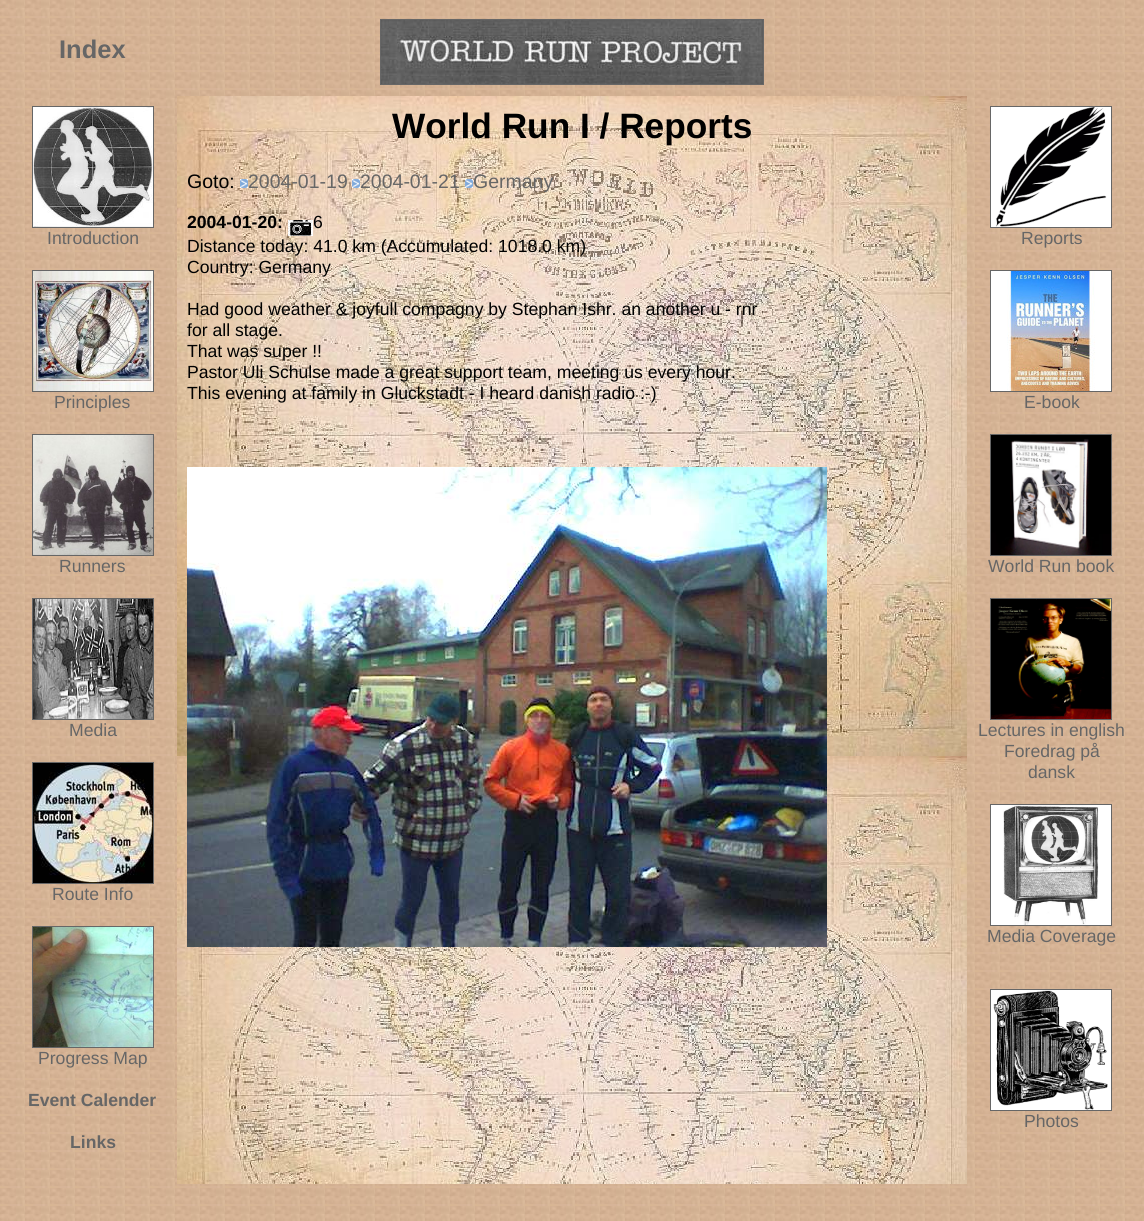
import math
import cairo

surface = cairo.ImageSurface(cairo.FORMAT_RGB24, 1144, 1221)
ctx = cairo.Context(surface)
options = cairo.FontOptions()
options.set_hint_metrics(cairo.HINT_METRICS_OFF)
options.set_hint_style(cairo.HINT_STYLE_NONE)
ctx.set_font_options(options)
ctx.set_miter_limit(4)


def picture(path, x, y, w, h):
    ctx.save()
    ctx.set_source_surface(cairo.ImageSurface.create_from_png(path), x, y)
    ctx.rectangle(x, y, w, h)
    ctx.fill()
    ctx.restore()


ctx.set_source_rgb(1, 1, 1)
ctx.paint()
picture("img1.png", 0, 0, 1144, 1221)
ctx.select_font_face("Liberation Sans", cairo.FONT_SLANT_NORMAL, cairo.FONT_WEIGHT_BOLD)
ctx.set_font_size(25.5)
ctx.set_source_rgb(0.4, 0.4, 0.4)
ctx.move_to(59, 58)
ctx.show_text("Index")
ctx.rectangle(380.5, 19.5, 383, 65)
ctx.set_line_width(1)
ctx.stroke()
picture("img2.png", 381, 20, 382, 64)
ctx.rectangle(32.5, 106.5, 121, 121)
ctx.stroke()
picture("img3.png", 33, 107, 120, 120)
ctx.select_font_face("Liberation Sans")
ctx.set_font_size(17.6)
ctx.move_to(47, 244)
ctx.show_text("Introduction")
ctx.rectangle(32.5, 270.5, 121, 121)
ctx.stroke()
picture("img4.png", 33, 271, 120, 120)
ctx.move_to(54, 408)
ctx.show_text("Principles")
ctx.rectangle(32.5, 434.5, 121, 121)
ctx.stroke()
picture("img5.png", 33, 435, 120, 120)
ctx.move_to(59, 572)
ctx.show_text("Runners")
ctx.rectangle(32.5, 598.5, 121, 121)
ctx.stroke()
picture("img6.png", 33, 599, 120, 120)
ctx.move_to(69, 736)
ctx.show_text("Media")
ctx.rectangle(32.5, 762.5, 121, 121)
ctx.stroke()
picture("img7.png", 33, 763, 120, 120)
ctx.move_to(52, 900)
ctx.show_text("Route Info")
ctx.rectangle(32.5, 926.5, 121, 121)
ctx.stroke()
picture("img8.png", 33, 927, 120, 120)
ctx.move_to(38, 1064)
ctx.show_text("Progress Map")
ctx.select_font_face("Liberation Sans", cairo.FONT_SLANT_NORMAL, cairo.FONT_WEIGHT_BOLD)
ctx.move_to(28, 1106)
ctx.show_text("Event Calender")
ctx.move_to(70, 1148)
ctx.show_text("Links")
picture("img9.png", 177, 96, 790, 1088)
ctx.set_font_size(35.25)
ctx.set_source_rgb(0, 0, 0)
ctx.move_to(392, 138)
ctx.show_text("World Run I / Reports")
ctx.select_font_face("Liberation Sans")
ctx.set_font_size(19.5)
ctx.move_to(187, 188)
ctx.show_text("Goto:")
picture("img10.png", 240, 179, 8, 9)
ctx.set_source_rgb(0.4, 0.4, 0.4)
ctx.move_to(248, 188)
ctx.show_text("2004-01-19")
picture("img10.png", 352, 179, 8, 9)
ctx.move_to(360, 188)
ctx.show_text("2004-01-21")
picture("img10.png", 465, 179, 8, 9)
ctx.move_to(473, 188)
ctx.show_text("Germany")
ctx.select_font_face("Liberation Sans", cairo.FONT_SLANT_NORMAL, cairo.FONT_WEIGHT_BOLD)
ctx.set_font_size(17.6)
ctx.set_source_rgb(0, 0, 0)
ctx.move_to(187, 228)
ctx.show_text("2004-01-20:")
picture("img11.png", 288, 220, 25, 16)
ctx.select_font_face("Liberation Sans")
ctx.move_to(313, 228)
ctx.show_text("6")
ctx.move_to(187, 252)
ctx.show_text("Distance today: 41.0 km (Accumulated: 1018.0 km)")
ctx.move_to(187, 273)
ctx.show_text("Country: Germany")
ctx.move_to(187, 315)
ctx.show_text("Had good weather & joyfull compagny by Stephan Ishr. an another u - rnr")
ctx.move_to(187, 336)
ctx.show_text("for all stage.")
ctx.move_to(187, 357)
ctx.show_text("That was super !!")
ctx.move_to(187, 378)
ctx.show_text("Pastor Uli Schulse made a great support team, meeting us every hour.")
ctx.move_to(187, 399)
ctx.show_text("This evening at family in Gluckstadt - I heard danish radio :-)")
picture("img12.png", 187, 467, 640, 480)
ctx.rectangle(990.5, 106.5, 121, 121)
ctx.set_source_rgb(0.4, 0.4, 0.4)
ctx.stroke()
picture("img13.png", 991, 107, 120, 120)
ctx.move_to(1021, 244)
ctx.show_text("Reports")
ctx.rectangle(990.5, 270.5, 121, 121)
ctx.stroke()
picture("img14.png", 991, 271, 120, 120)
ctx.move_to(1024, 408)
ctx.show_text("E-book")
ctx.rectangle(990.5, 434.5, 121, 121)
ctx.stroke()
picture("img15.png", 991, 435, 120, 120)
ctx.move_to(988, 572)
ctx.show_text("World Run book")
ctx.rectangle(990.5, 598.5, 121, 121)
ctx.stroke()
picture("img16.png", 991, 599, 120, 120)
ctx.move_to(978, 736)
ctx.show_text("Lectures in english")
ctx.move_to(1004, 757)
ctx.show_text("Foredrag på")
ctx.move_to(1028, 778)
ctx.show_text("dansk")
ctx.rectangle(990.5, 804.5, 121, 121)
ctx.stroke()
picture("img17.png", 991, 805, 120, 120)
ctx.move_to(987, 942)
ctx.show_text("Media Coverage")
ctx.rectangle(990.5, 989.5, 121, 121)
ctx.stroke()
picture("img18.png", 991, 990, 120, 120)
ctx.move_to(1024, 1127)
ctx.show_text("Photos")
surface.write_to_png("page.png")
